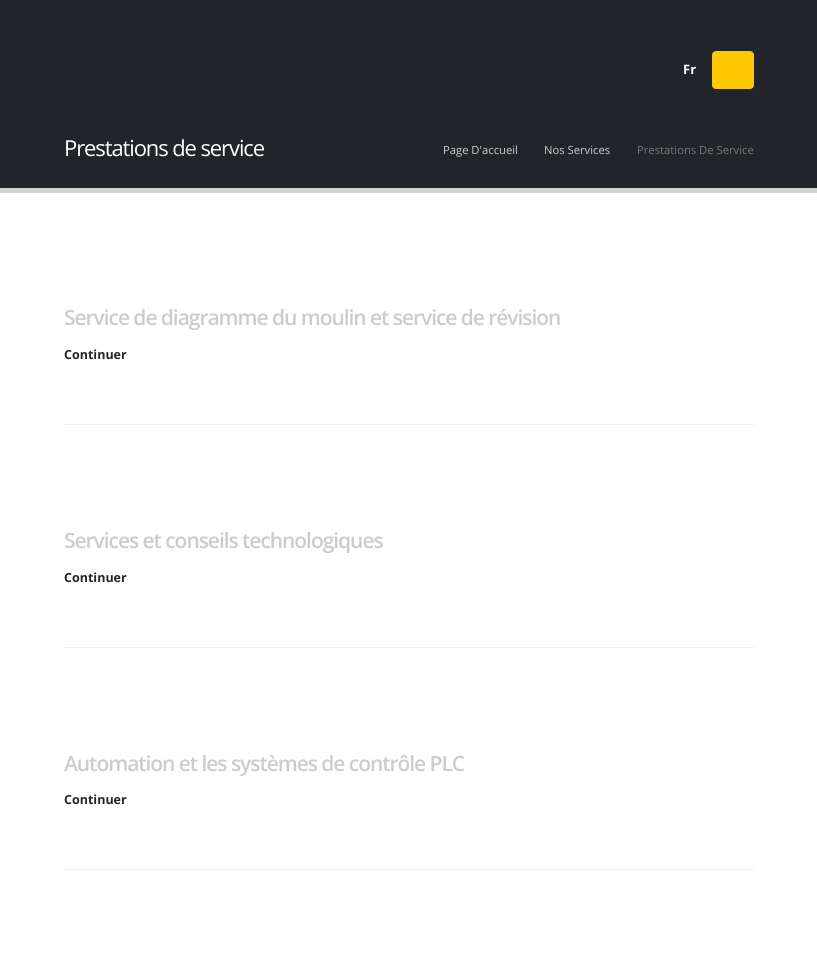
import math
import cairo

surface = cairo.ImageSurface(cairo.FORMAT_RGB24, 817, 971)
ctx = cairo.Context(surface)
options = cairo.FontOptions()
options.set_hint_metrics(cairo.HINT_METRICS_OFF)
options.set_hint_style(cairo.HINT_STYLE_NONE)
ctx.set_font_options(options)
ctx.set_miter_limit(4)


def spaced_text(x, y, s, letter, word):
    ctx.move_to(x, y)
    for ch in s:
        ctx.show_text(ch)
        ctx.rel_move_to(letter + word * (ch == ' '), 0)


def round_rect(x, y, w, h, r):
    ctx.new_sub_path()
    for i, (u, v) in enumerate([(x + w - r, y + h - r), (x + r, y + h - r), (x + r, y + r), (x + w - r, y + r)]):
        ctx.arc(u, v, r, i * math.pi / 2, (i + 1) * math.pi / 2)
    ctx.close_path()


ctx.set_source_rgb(1, 1, 1)
ctx.paint()
ctx.set_source_rgb(0.129, 0.145, 0.161)
ctx.rectangle(0, 0, 817, 188)
ctx.fill()
ctx.select_font_face("Open Sans", cairo.FONT_SLANT_NORMAL, cairo.FONT_WEIGHT_BOLD)
ctx.set_font_size(13)
ctx.set_source_rgb(1, 1, 1)
ctx.move_to(683, 74)
ctx.show_text("Fr")
ctx.set_source_rgb(0.996, 0.784, 0)
round_rect(712, 51, 42, 38, 4)
ctx.fill()
ctx.select_font_face("Open Sans")
ctx.set_font_size(22)
ctx.set_source_rgb(1, 1, 1)
spaced_text(64, 156, "Prestations de service", -1.1, 0)
ctx.set_font_size(11.25)
ctx.set_source_rgb(0.8, 0.8, 0.8)
ctx.move_to(443, 154)
ctx.show_text("Page D'accueil")
ctx.move_to(544, 154)
ctx.show_text("Nos Services")
ctx.set_source_rgb(0.467, 0.467, 0.467)
ctx.move_to(637, 154)
ctx.show_text("Prestations De Service")
ctx.set_source_rgb(0.827, 0.827, 0.831)
ctx.rectangle(0, 188, 817, 5)
ctx.fill()
ctx.set_source_rgb(0.941, 0.941, 0.941)
ctx.rectangle(64, 424, 690, 1)
ctx.fill()
ctx.select_font_face("Open Sans SemiBold")
ctx.set_font_size(21)
ctx.set_source_rgb(0.8, 0.8, 0.8)
spaced_text(64, 325, "Service de diagramme du moulin et service de révision", -1.05, 0)
ctx.select_font_face("Open Sans", cairo.FONT_SLANT_NORMAL, cairo.FONT_WEIGHT_BOLD)
ctx.set_font_size(12.5)
ctx.set_source_rgb(0.129, 0.145, 0.161)
ctx.move_to(64, 359)
ctx.show_text("Continuer")
ctx.set_source_rgb(0.941, 0.941, 0.941)
ctx.rectangle(64, 647, 690, 1)
ctx.fill()
ctx.select_font_face("Open Sans SemiBold")
ctx.set_font_size(21)
ctx.set_source_rgb(0.8, 0.8, 0.8)
spaced_text(64, 548, "Services et conseils technologiques", -1.05, 0)
ctx.select_font_face("Open Sans", cairo.FONT_SLANT_NORMAL, cairo.FONT_WEIGHT_BOLD)
ctx.set_font_size(12.5)
ctx.set_source_rgb(0.129, 0.145, 0.161)
ctx.move_to(64, 582)
ctx.show_text("Continuer")
ctx.set_source_rgb(0.941, 0.941, 0.941)
ctx.rectangle(64, 869, 690, 1)
ctx.fill()
ctx.select_font_face("Open Sans SemiBold")
ctx.set_font_size(21)
ctx.set_source_rgb(0.8, 0.8, 0.8)
spaced_text(64, 771, "Automation et les systèmes de contrôle PLC", -1.05, 0)
ctx.select_font_face("Open Sans", cairo.FONT_SLANT_NORMAL, cairo.FONT_WEIGHT_BOLD)
ctx.set_font_size(12.5)
ctx.set_source_rgb(0.129, 0.145, 0.161)
ctx.move_to(64, 804)
ctx.show_text("Continuer")
surface.write_to_png("page.png")
